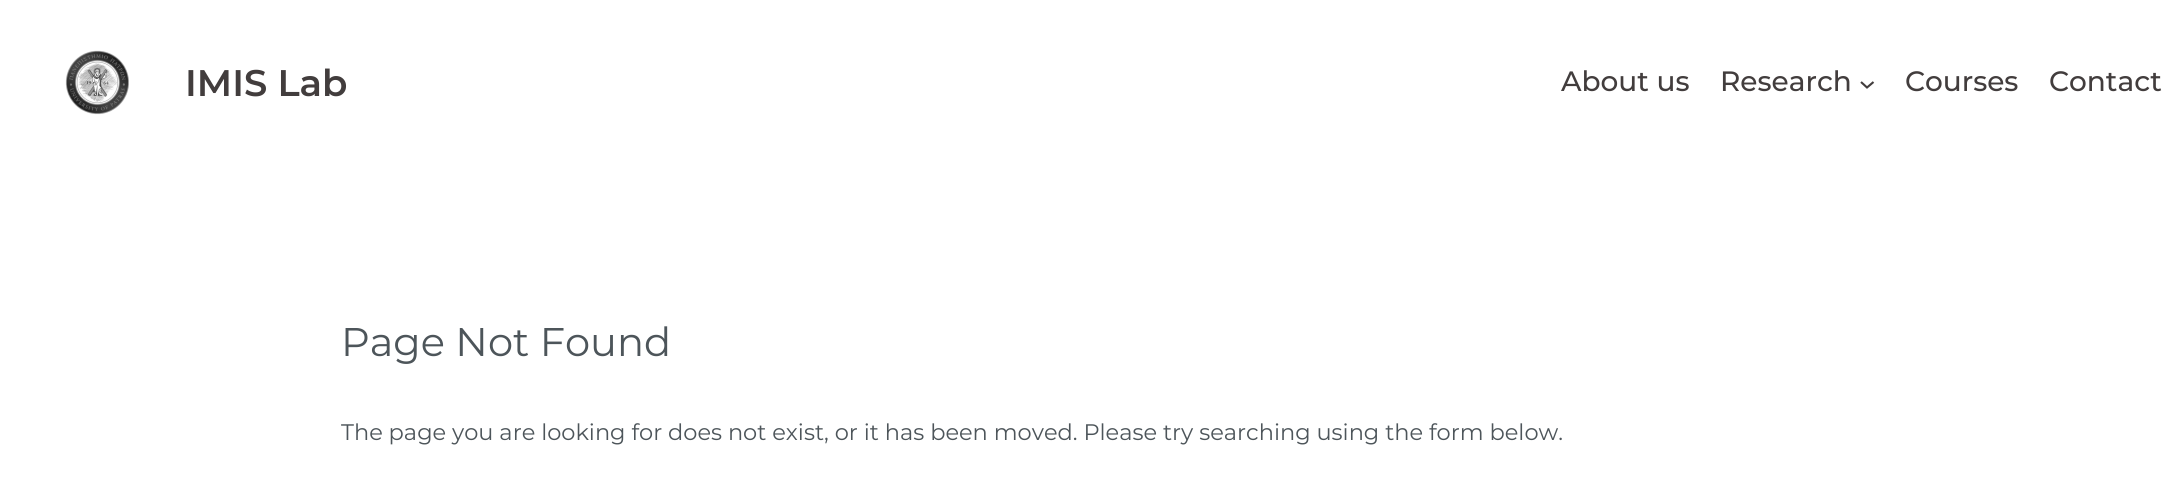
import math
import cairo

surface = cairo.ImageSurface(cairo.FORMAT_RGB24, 2181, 497)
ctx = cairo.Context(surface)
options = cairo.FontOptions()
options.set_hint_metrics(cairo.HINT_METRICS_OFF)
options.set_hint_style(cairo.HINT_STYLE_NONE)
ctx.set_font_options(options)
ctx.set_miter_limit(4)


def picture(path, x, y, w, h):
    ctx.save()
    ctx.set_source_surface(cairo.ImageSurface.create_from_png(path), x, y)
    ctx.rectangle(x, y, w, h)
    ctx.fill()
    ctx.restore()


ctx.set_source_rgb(1, 1, 1)
ctx.paint()
picture("img1.png", 65, 50, 64, 65)
ctx.select_font_face("Montserrat SemiBold")
ctx.set_font_size(37)
ctx.set_source_rgb(0.259, 0.239, 0.239)
ctx.move_to(185, 96)
ctx.show_text("IMIS Lab")
ctx.select_font_face("Montserrat Medium")
ctx.set_font_size(28)
ctx.move_to(1561, 91)
ctx.show_text("About us")
ctx.move_to(1720, 91)
ctx.show_text("Research")
ctx.new_path()
ctx.move_to(1861, 82)
ctx.line_to(1867, 87.5)
ctx.line_to(1873.5, 82)
ctx.set_line_width(2.1)
ctx.stroke()
ctx.move_to(1905, 91)
ctx.show_text("Courses")
ctx.move_to(2049, 91)
ctx.show_text("Contact")
ctx.select_font_face("Montserrat")
ctx.set_font_size(40)
ctx.set_source_rgb(0.302, 0.333, 0.353)
ctx.move_to(341, 356)
ctx.show_text("Page Not Found")
ctx.set_font_size(22.5)
ctx.move_to(341, 440)
ctx.show_text("The page you are looking for does not exist, or it has been moved. Please try searching using the form below.")
surface.write_to_png("page.png")
